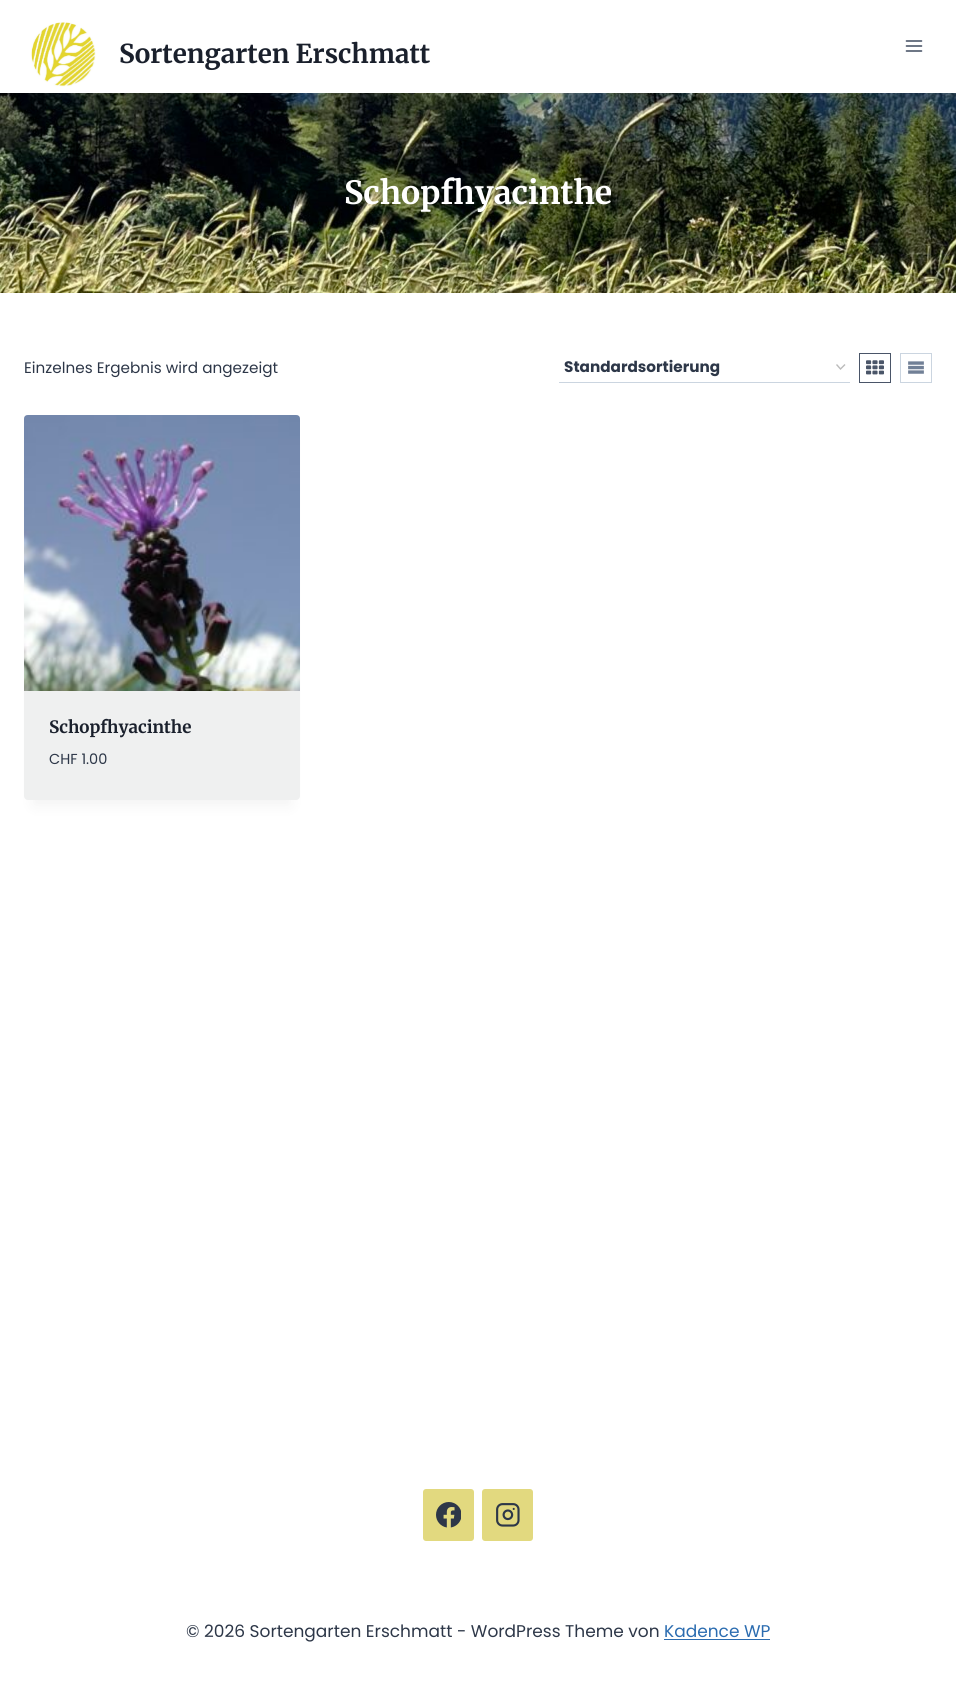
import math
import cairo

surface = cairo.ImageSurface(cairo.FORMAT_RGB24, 956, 1699)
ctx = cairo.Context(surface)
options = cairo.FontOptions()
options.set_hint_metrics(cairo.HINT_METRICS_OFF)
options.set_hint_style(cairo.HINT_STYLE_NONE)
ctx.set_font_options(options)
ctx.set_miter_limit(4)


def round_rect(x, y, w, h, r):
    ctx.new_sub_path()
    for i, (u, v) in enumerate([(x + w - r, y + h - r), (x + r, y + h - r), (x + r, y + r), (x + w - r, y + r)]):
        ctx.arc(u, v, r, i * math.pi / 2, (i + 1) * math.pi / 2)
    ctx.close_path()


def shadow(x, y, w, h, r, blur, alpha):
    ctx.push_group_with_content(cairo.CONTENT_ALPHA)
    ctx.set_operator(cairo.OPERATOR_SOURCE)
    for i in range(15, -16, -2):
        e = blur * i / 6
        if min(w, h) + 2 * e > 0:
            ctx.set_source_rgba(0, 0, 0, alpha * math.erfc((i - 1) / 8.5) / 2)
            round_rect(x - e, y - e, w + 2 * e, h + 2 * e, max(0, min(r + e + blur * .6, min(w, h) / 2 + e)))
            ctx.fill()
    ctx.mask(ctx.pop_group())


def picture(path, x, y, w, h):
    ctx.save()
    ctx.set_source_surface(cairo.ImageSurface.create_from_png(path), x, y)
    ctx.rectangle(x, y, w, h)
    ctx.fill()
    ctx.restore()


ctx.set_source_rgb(1, 1, 1)
ctx.paint()
picture("img1.png", 31, 22, 65, 65)
ctx.select_font_face("Merriweather Light")
ctx.set_font_size(26)
ctx.set_source_rgb(0.102, 0.125, 0.173)
ctx.move_to(119, 63)
ctx.show_text("Sortengarten Erschmatt")
picture("img2.png", 905, 40, 18, 12)
picture("img3.png", 0, 93, 956, 200)
ctx.set_font_size(32)
ctx.set_source_rgb(1, 1, 1)
ctx.move_to(344, 204)
ctx.show_text("Schopfhyacinthe")
ctx.select_font_face("Poppins")
ctx.set_font_size(15.25)
ctx.set_source_rgb(0.176, 0.216, 0.282)
ctx.move_to(24, 373)
ctx.show_text("Einzelnes Ergebnis wird angezeigt")
ctx.new_path()
ctx.move_to(836.5, 364.5)
ctx.line_to(840.5, 369)
ctx.line_to(845, 364.5)
ctx.set_source_rgb(0.733, 0.733, 0.733)
ctx.set_line_width(1.4)
ctx.stroke()
ctx.set_source_rgb(0.796, 0.835, 0.878)
ctx.rectangle(559, 382, 291, 1)
ctx.fill()
ctx.select_font_face("Poppins", cairo.FONT_SLANT_NORMAL, cairo.FONT_WEIGHT_BOLD)
ctx.set_source_rgb(0.176, 0.216, 0.282)
ctx.move_to(564, 372)
ctx.show_text("Standardsortierung")
ctx.rectangle(859.5, 353.5, 31, 29)
ctx.set_source_rgb(0.29, 0.333, 0.408)
ctx.set_line_width(1)
ctx.stroke()
picture("img4.png", 866, 360, 18, 15)
ctx.rectangle(900.5, 353.5, 31, 29)
ctx.set_source_rgb(0.796, 0.835, 0.878)
ctx.stroke()
picture("img5.png", 908, 361, 16, 13)
ctx.set_source_rgb(0, 0, 0)
shadow(34, 440, 256, 365, 0, 7.5, 0.05)
ctx.set_source_rgb(0.937, 0.941, 0.941)
round_rect(24, 415, 276, 385, 4)
ctx.fill()
picture("img6.png", 24, 415, 276, 276)
ctx.select_font_face("Merriweather Light")
ctx.set_font_size(17)
ctx.set_source_rgb(0.102, 0.125, 0.173)
ctx.move_to(49, 733)
ctx.show_text("Schopfhyacinthe")
ctx.select_font_face("Poppins")
ctx.set_font_size(14.5)
ctx.set_source_rgb(0.176, 0.216, 0.282)
ctx.move_to(49, 764)
ctx.show_text("CHF 1.00")
ctx.set_source_rgb(0.886, 0.851, 0.498)
round_rect(423, 1489, 51, 52, 3)
ctx.fill()
picture("img7.png", 436, 1502, 25, 26)
round_rect(482, 1489, 51, 52, 3)
ctx.fill()
picture("img8.png", 496, 1503, 24, 24)
ctx.set_font_size(17)
ctx.set_source_rgb(0.176, 0.216, 0.282)
ctx.move_to(186, 1637)
ctx.show_text("© 2026 Sortengarten Erschmatt - WordPress Theme von")
ctx.set_source_rgb(0.169, 0.424, 0.69)
ctx.move_to(664, 1637)
ctx.show_text("Kadence WP")
ctx.rectangle(664, 1639, 106, 1)
ctx.fill()
surface.write_to_png("page.png")
